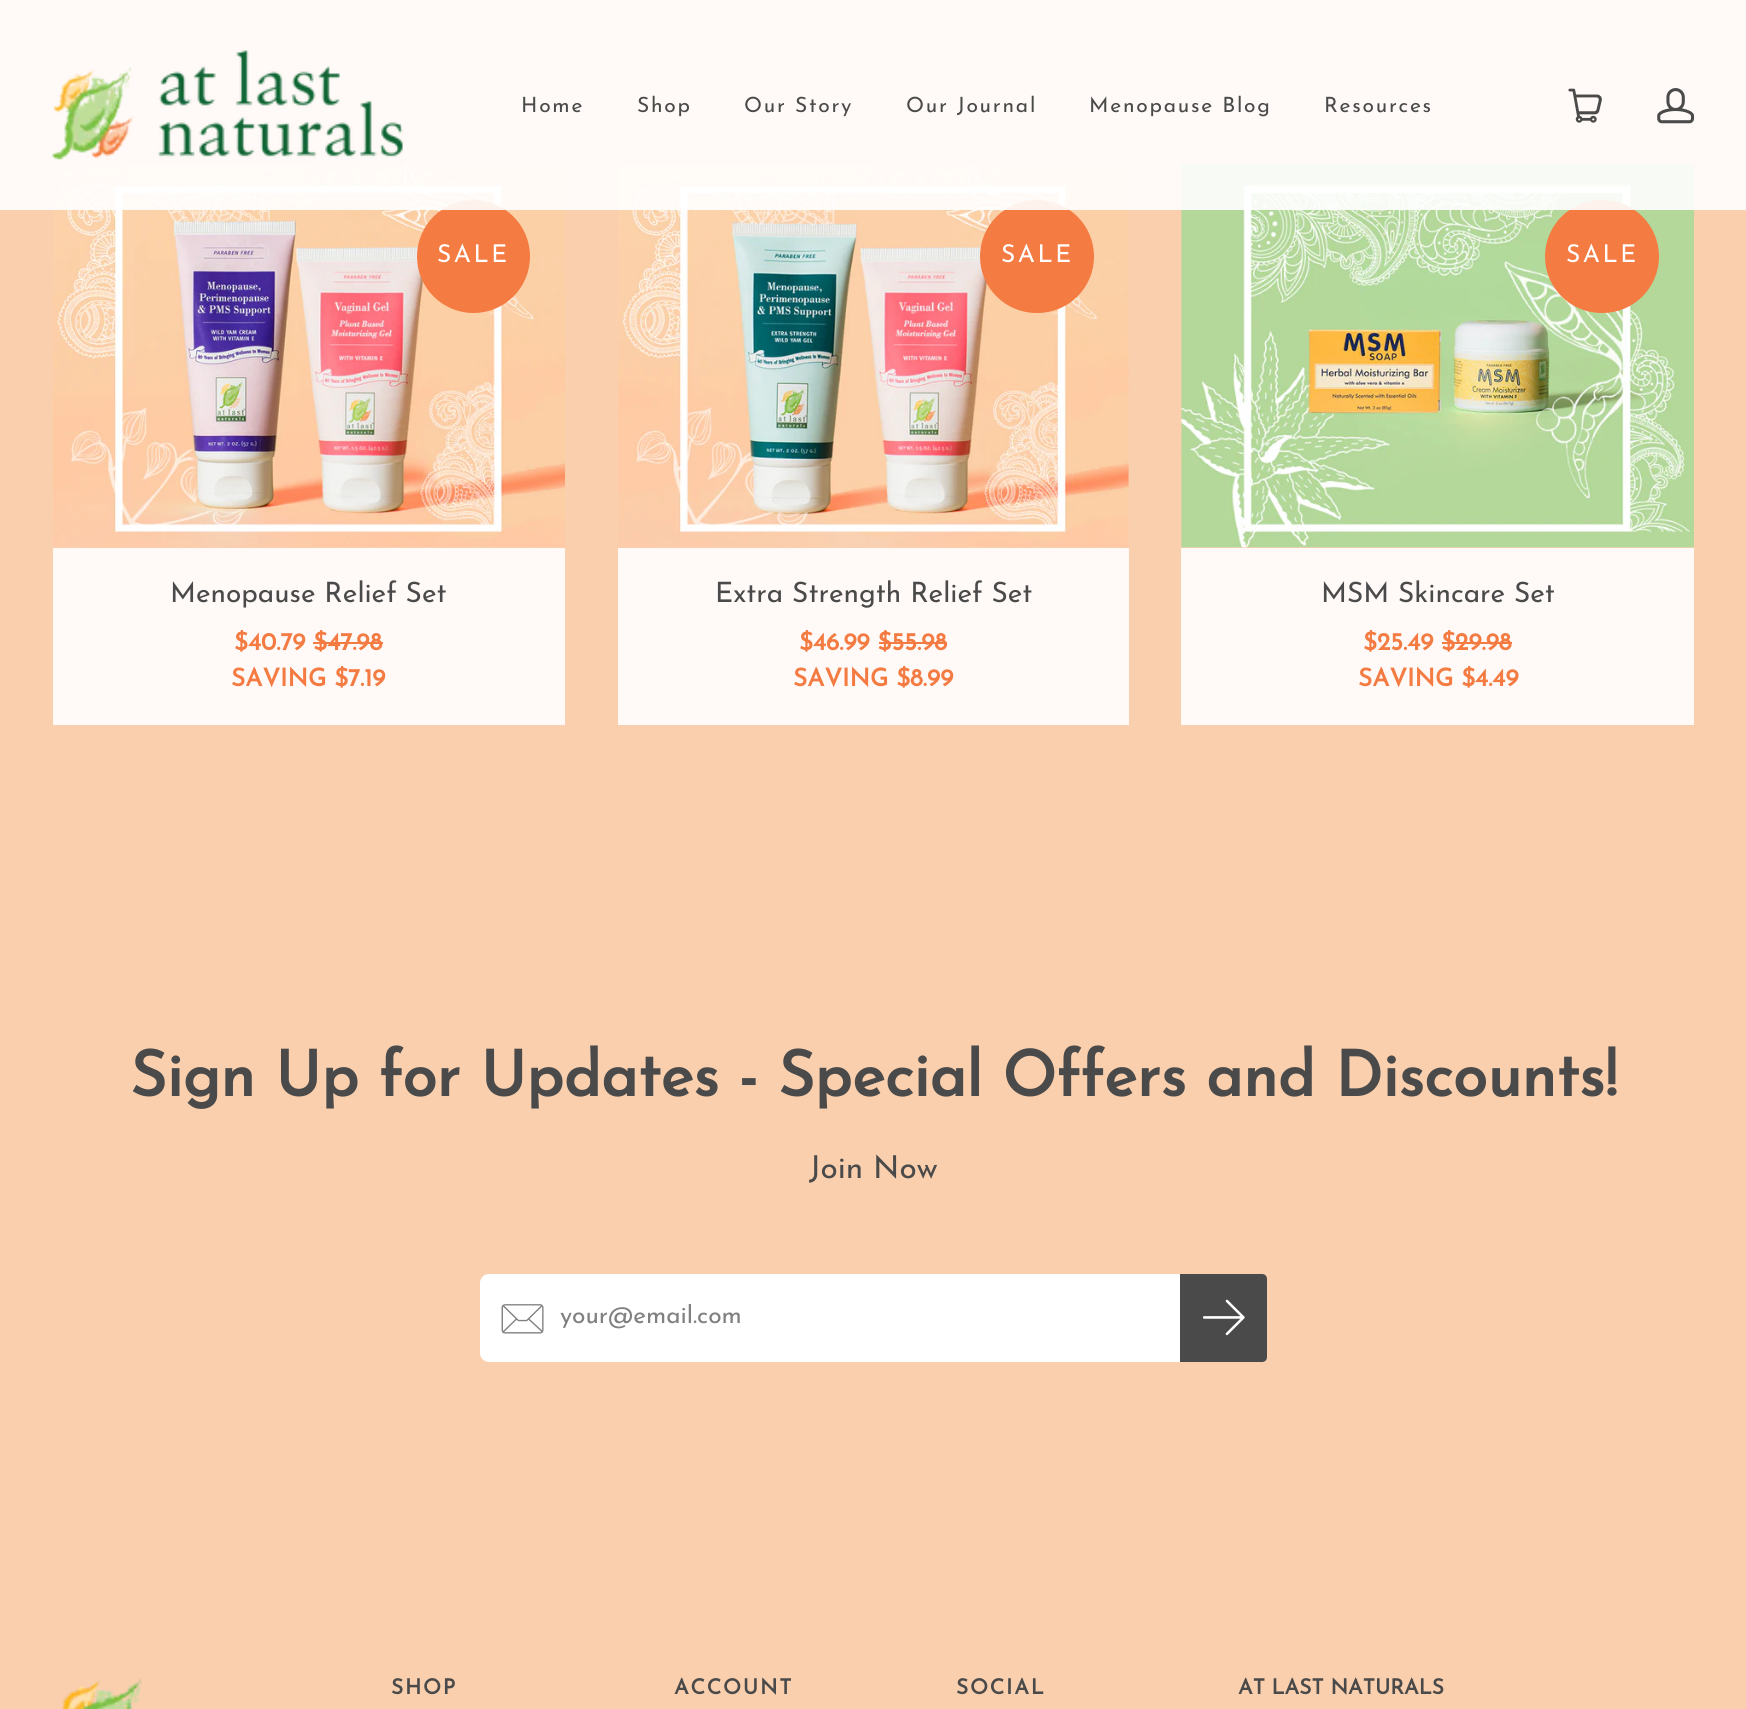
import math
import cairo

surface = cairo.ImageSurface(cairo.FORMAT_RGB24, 1746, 1709)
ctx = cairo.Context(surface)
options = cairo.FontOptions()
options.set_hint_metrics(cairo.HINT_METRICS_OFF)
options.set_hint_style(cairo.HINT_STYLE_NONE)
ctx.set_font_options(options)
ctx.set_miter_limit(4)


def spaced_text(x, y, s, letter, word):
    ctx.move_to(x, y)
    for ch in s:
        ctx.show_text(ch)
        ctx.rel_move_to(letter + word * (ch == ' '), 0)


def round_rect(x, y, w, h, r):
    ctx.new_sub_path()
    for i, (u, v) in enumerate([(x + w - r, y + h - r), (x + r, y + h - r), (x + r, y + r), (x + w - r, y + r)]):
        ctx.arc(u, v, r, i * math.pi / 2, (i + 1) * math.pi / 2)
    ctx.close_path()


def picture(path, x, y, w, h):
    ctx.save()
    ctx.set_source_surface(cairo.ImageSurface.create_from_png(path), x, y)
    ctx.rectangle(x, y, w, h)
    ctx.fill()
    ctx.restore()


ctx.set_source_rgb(0.98, 0.812, 0.678)
ctx.paint()
picture("img4.png", 53, 164, 513, 383)
ctx.set_source_rgb(0.957, 0.482, 0.259)
ctx.arc(473.5, 256.5, 56.5, 0, 2 * math.pi)
ctx.fill()
picture("img5.png", 618, 164, 511, 383)
round_rect(980, 200, 114, 113, 56.5)
ctx.fill()
picture("img6.png", 1181, 164, 513, 384)
round_rect(1545, 200, 114, 113, 56.5)
ctx.fill()
ctx.set_source_rgba(1, 1, 1, 0.9)
ctx.rectangle(0, 0, 1746, 210)
ctx.fill()
picture("img1.png", 52, 50, 351, 110)
ctx.select_font_face("Josefin Sans Thin")
ctx.set_font_size(21)
ctx.set_source_rgb(0.29, 0.29, 0.29)
spaced_text(521, 112, "Home", 1.75, 0)
spaced_text(637, 112, "Shop", 1.75, 0)
spaced_text(744, 112, "Our Story", 1.75, 0)
spaced_text(906, 112, "Our Journal", 1.75, 0)
spaced_text(1089, 112, "Menopause Blog", 1.75, 0)
spaced_text(1324, 112, "Resources", 1.75, 0)
picture("img2.png", 1568, 88, 34, 35)
picture("img3.png", 1657, 88, 37, 36)
ctx.set_font_size(24.5)
ctx.set_source_rgb(1, 1, 1)
spaced_text(437, 262, "SALE", 2.5, 0)
ctx.set_source_rgb(1, 0.98, 0.969)
ctx.rectangle(53, 548, 512, 177)
ctx.fill()
ctx.set_font_size(28)
ctx.set_source_rgb(0.29, 0.29, 0.29)
ctx.move_to(170, 602)
ctx.show_text("Menopause Relief Set")
ctx.select_font_face("Josefin Sans", cairo.FONT_SLANT_NORMAL, cairo.FONT_WEIGHT_BOLD)
ctx.set_font_size(24.5)
ctx.set_source_rgb(0.957, 0.482, 0.259)
ctx.move_to(234, 650)
ctx.show_text("$40.79 $47.98")
ctx.rectangle(313, 642, 70, 2)
ctx.fill()
ctx.move_to(231, 686)
ctx.show_text("SAVING $7.19")
ctx.select_font_face("Josefin Sans Thin")
ctx.set_source_rgb(1, 1, 1)
spaced_text(1001, 262, "SALE", 2.5, 0)
ctx.set_source_rgb(1, 0.98, 0.969)
ctx.rectangle(618, 548, 511, 177)
ctx.fill()
ctx.set_font_size(28)
ctx.set_source_rgb(0.29, 0.29, 0.29)
ctx.move_to(715, 602)
ctx.show_text("Extra Strength Relief Set")
ctx.select_font_face("Josefin Sans", cairo.FONT_SLANT_NORMAL, cairo.FONT_WEIGHT_BOLD)
ctx.set_font_size(24.5)
ctx.set_source_rgb(0.957, 0.482, 0.259)
ctx.move_to(799, 650)
ctx.show_text("$46.99 $55.98")
ctx.rectangle(879, 642, 68, 2)
ctx.fill()
ctx.move_to(793, 686)
ctx.show_text("SAVING $8.99")
ctx.select_font_face("Josefin Sans Thin")
ctx.set_source_rgb(1, 1, 1)
spaced_text(1566, 262, "SALE", 2.5, 0)
ctx.set_source_rgb(1, 0.98, 0.969)
ctx.rectangle(1181, 548, 513, 177)
ctx.fill()
ctx.set_font_size(28)
ctx.set_source_rgb(0.29, 0.29, 0.29)
ctx.move_to(1321, 602)
ctx.show_text("MSM Skincare Set")
ctx.select_font_face("Josefin Sans", cairo.FONT_SLANT_NORMAL, cairo.FONT_WEIGHT_BOLD)
ctx.set_font_size(24.5)
ctx.set_source_rgb(0.957, 0.482, 0.259)
ctx.move_to(1363, 650)
ctx.show_text("$25.49 $29.98")
ctx.rectangle(1442, 642, 70, 2)
ctx.fill()
ctx.move_to(1358, 686)
ctx.show_text("SAVING $4.49")
ctx.set_font_size(63)
ctx.set_source_rgb(0.29, 0.29, 0.29)
ctx.move_to(130, 1096)
ctx.show_text("Sign Up for Updates - Special Offers and Discounts!")
ctx.select_font_face("Josefin Sans Thin")
ctx.set_font_size(31.5)
ctx.move_to(809, 1178)
ctx.show_text("Join Now")
ctx.set_source_rgb(1, 1, 1)
round_rect(480, 1274, 787, 88, 9)
ctx.fill()
picture("img7.png", 501, 1304, 43, 30)
ctx.set_font_size(24.5)
ctx.set_source_rgb(0.502, 0.502, 0.502)
ctx.move_to(560, 1323)
ctx.show_text("your@email.com")
ctx.set_source_rgb(0.29, 0.29, 0.29)
ctx.new_path()
ctx.move_to(1180, 1274)
ctx.line_to(1262, 1274)
ctx.curve_to(1265, 1274, 1267, 1276, 1267, 1279)
ctx.line_to(1267, 1357)
ctx.curve_to(1267, 1360, 1265, 1362, 1262, 1362)
ctx.line_to(1180, 1362)
ctx.close_path()
ctx.fill()
picture("img8.png", 1202, 1299, 43, 37)
picture("img9.png", 62, 1678, 80, 31)
ctx.select_font_face("Josefin Sans", cairo.FONT_SLANT_NORMAL, cairo.FONT_WEIGHT_BOLD)
ctx.set_font_size(21)
spaced_text(391, 1694, "SHOP", 1.75, 0)
spaced_text(674, 1694, "ACCOUNT", 1.75, 0)
spaced_text(956, 1694, "SOCIAL", 1.75, 0)
ctx.move_to(1238, 1694)
ctx.show_text("AT LAST NATURALS")
surface.write_to_png("page.png")
